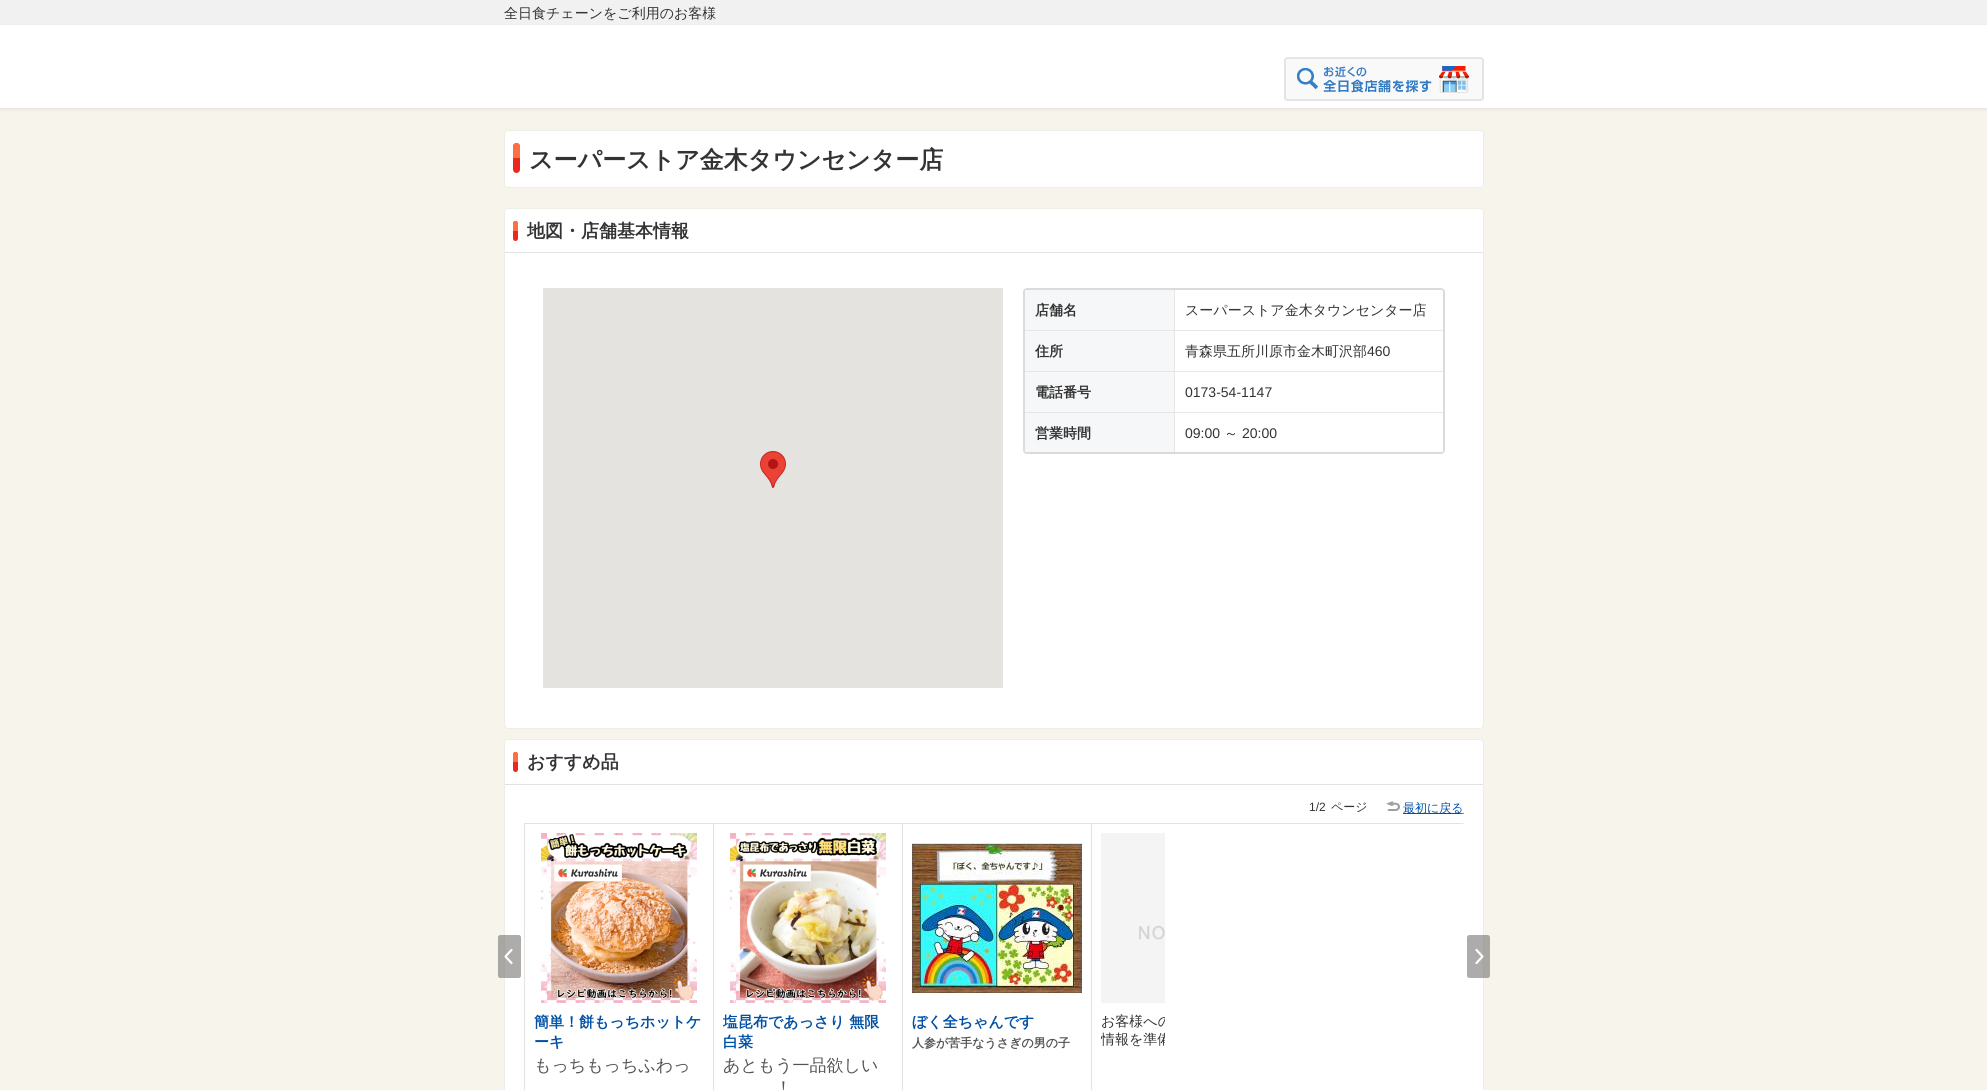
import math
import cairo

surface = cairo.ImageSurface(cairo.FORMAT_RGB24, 1987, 1090)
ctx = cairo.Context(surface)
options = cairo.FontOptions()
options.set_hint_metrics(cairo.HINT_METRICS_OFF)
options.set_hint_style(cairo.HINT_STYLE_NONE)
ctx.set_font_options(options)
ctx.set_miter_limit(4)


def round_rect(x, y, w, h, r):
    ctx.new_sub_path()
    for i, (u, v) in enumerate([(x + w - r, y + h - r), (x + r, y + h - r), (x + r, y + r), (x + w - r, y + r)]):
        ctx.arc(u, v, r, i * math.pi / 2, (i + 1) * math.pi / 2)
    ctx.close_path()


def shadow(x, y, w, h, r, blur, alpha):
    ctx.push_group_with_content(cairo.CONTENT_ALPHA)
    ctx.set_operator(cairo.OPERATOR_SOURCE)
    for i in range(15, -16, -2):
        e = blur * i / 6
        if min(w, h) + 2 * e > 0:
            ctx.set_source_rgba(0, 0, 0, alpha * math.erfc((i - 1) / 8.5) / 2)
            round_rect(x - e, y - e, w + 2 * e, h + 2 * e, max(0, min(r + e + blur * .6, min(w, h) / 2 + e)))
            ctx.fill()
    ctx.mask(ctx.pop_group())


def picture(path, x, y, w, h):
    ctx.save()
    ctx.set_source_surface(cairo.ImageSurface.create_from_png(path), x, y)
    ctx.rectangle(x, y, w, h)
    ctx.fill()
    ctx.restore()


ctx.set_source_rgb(0.965, 0.957, 0.922)
ctx.paint()
ctx.set_source_rgb(0.91, 0.902, 0.867)
shadow(0, 2, 1987, 108, 0, 1.5, 1)
ctx.set_source_rgb(1, 1, 1)
ctx.rectangle(0, 25, 1987, 83)
ctx.fill()
ctx.set_source_rgb(0.945, 0.945, 0.945)
ctx.rectangle(0, 0, 1987, 24)
ctx.fill()
ctx.set_source_rgb(0.933, 0.933, 0.933)
ctx.rectangle(0, 24, 1987, 1)
ctx.fill()
ctx.select_font_face("WenQuanYi Zen Hei Medium")
ctx.set_font_size(14)
ctx.set_source_rgb(0.2, 0.2, 0.2)
ctx.move_to(504, 18)
ctx.show_text("全日食チェーンをご利用のお客様")
picture("img1.png", 1284, 57, 200, 44)
ctx.set_source_rgb(1, 1, 1)
round_rect(504.5, 130.5, 979, 57, 3.5)
ctx.fill_preserve()
ctx.set_source_rgb(0.933, 0.933, 0.902)
ctx.set_line_width(1)
ctx.stroke()
ctx.set_source_rgb(0.925, 0.157, 0.118)
round_rect(513, 143, 7, 30, 3.5)
ctx.fill()
ctx.set_source_rgb(1, 0.435, 0.267)
ctx.new_path()
ctx.move_to(516.5, 143)
ctx.curve_to(518.5, 143, 520, 144.5, 520, 146.5)
ctx.line_to(520, 158)
ctx.line_to(513, 158)
ctx.line_to(513, 146.5)
ctx.curve_to(513, 144.5, 514.5, 143, 516.5, 143)
ctx.close_path()
ctx.fill()
ctx.select_font_face("WenQuanYi Zen Hei", cairo.FONT_SLANT_NORMAL, cairo.FONT_WEIGHT_BOLD)
ctx.set_font_size(24)
ctx.set_source_rgb(0.2, 0.2, 0.2)
ctx.move_to(529, 168)
ctx.show_text("スーパーストア金木タウンセンター店")
ctx.set_source_rgb(1, 1, 1)
round_rect(504.5, 208.5, 979, 520, 3.5)
ctx.fill_preserve()
ctx.set_source_rgb(0.933, 0.933, 0.902)
ctx.stroke()
ctx.set_source_rgb(0.886, 0.886, 0.886)
ctx.rectangle(505, 252, 978, 1)
ctx.fill()
ctx.set_source_rgb(0.925, 0.157, 0.118)
round_rect(513, 221, 5, 20, 2.5)
ctx.fill()
ctx.set_source_rgb(1, 0.435, 0.267)
ctx.new_path()
ctx.move_to(515.5, 221)
ctx.curve_to(517, 221, 518, 222, 518, 223.5)
ctx.line_to(518, 231)
ctx.line_to(513, 231)
ctx.line_to(513, 223.5)
ctx.curve_to(513, 222, 514, 221, 515.5, 221)
ctx.close_path()
ctx.fill()
ctx.set_font_size(18)
ctx.set_source_rgb(0.2, 0.2, 0.2)
ctx.move_to(527, 237)
ctx.show_text("地図・店舗基本情報")
ctx.set_source_rgb(0.898, 0.89, 0.875)
ctx.rectangle(543, 288, 460, 400)
ctx.fill()
picture("img2.png", 760, 451, 26, 37)
round_rect(1024, 289, 420, 164, 3)
ctx.set_source_rgb(0.859, 0.859, 0.859)
ctx.set_line_width(2)
ctx.stroke()
ctx.set_source_rgb(1, 1, 1)
round_rect(1025, 290, 418, 162, 2)
ctx.fill()
ctx.set_source_rgb(0.961, 0.965, 0.969)
ctx.new_path()
ctx.move_to(1027, 290)
ctx.line_to(1175, 290)
ctx.line_to(1175, 330)
ctx.line_to(1025, 330)
ctx.line_to(1025, 292)
ctx.curve_to(1025, 291, 1026, 290, 1027, 290)
ctx.close_path()
ctx.fill()
ctx.set_font_size(14)
ctx.set_source_rgb(0.2, 0.2, 0.2)
ctx.move_to(1035, 315)
ctx.show_text("店舗名")
ctx.set_source_rgb(0.906, 0.906, 0.906)
ctx.rectangle(1174, 330, 269, 1)
ctx.fill()
ctx.rectangle(1174, 371, 269, 1)
ctx.fill()
ctx.set_source_rgb(0.961, 0.965, 0.969)
ctx.new_path()
ctx.move_to(1025, 412)
ctx.line_to(1175, 412)
ctx.line_to(1175, 452)
ctx.line_to(1027, 452)
ctx.curve_to(1026, 452, 1025, 451, 1025, 450)
ctx.close_path()
ctx.fill()
ctx.set_source_rgb(0.906, 0.906, 0.906)
ctx.rectangle(1174, 412, 269, 1)
ctx.fill()
ctx.rectangle(1174, 412, 1, 40)
ctx.fill()
ctx.rectangle(1025, 412, 150, 1)
ctx.fill()
ctx.rectangle(1174, 371, 1, 42)
ctx.fill()
ctx.rectangle(1025, 371, 150, 1)
ctx.fill()
ctx.rectangle(1174, 330, 1, 42)
ctx.fill()
ctx.rectangle(1025, 330, 150, 1)
ctx.fill()
ctx.rectangle(1174, 290, 1, 41)
ctx.fill()
ctx.select_font_face("WenQuanYi Zen Hei Medium")
ctx.set_source_rgb(0.2, 0.2, 0.2)
ctx.move_to(1185, 315)
ctx.show_text("スーパーストア金木タウンセンター店")
ctx.set_source_rgb(0.961, 0.965, 0.969)
ctx.rectangle(1025, 331, 149, 40)
ctx.fill()
ctx.select_font_face("WenQuanYi Zen Hei", cairo.FONT_SLANT_NORMAL, cairo.FONT_WEIGHT_BOLD)
ctx.set_source_rgb(0.2, 0.2, 0.2)
ctx.move_to(1035, 356)
ctx.show_text("住所")
ctx.select_font_face("WenQuanYi Zen Hei Medium")
ctx.move_to(1185, 356)
ctx.show_text("青森県五所川原市金木町沢部")
ctx.select_font_face("Liberation Sans")
ctx.move_to(1367, 356)
ctx.show_text("460")
ctx.set_source_rgb(0.961, 0.965, 0.969)
ctx.rectangle(1025, 372, 149, 40)
ctx.fill()
ctx.select_font_face("WenQuanYi Zen Hei", cairo.FONT_SLANT_NORMAL, cairo.FONT_WEIGHT_BOLD)
ctx.set_source_rgb(0.2, 0.2, 0.2)
ctx.move_to(1035, 397)
ctx.show_text("電話番号")
ctx.select_font_face("Liberation Sans")
ctx.move_to(1185, 397)
ctx.show_text("0173-54-1147")
ctx.select_font_face("WenQuanYi Zen Hei", cairo.FONT_SLANT_NORMAL, cairo.FONT_WEIGHT_BOLD)
ctx.move_to(1035, 438)
ctx.show_text("営業時間")
ctx.select_font_face("Liberation Sans")
ctx.move_to(1185, 438)
ctx.show_text("09:00")
ctx.select_font_face("WenQuanYi Zen Hei Medium")
ctx.move_to(1224, 438)
ctx.show_text("～")
ctx.select_font_face("Liberation Sans")
ctx.move_to(1242, 438)
ctx.show_text("20:00")
ctx.set_source_rgb(1, 1, 1)
round_rect(504.5, 739.5, 979, 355, 3.5)
ctx.fill_preserve()
ctx.set_source_rgb(0.933, 0.933, 0.902)
ctx.set_line_width(1)
ctx.stroke()
ctx.set_source_rgb(0.886, 0.886, 0.886)
ctx.rectangle(505, 784, 978, 1)
ctx.fill()
ctx.set_source_rgb(0.925, 0.157, 0.118)
round_rect(513, 752, 5, 20, 2.5)
ctx.fill()
ctx.set_source_rgb(1, 0.435, 0.267)
ctx.new_path()
ctx.move_to(515.5, 752)
ctx.curve_to(517, 752, 518, 753, 518, 754.5)
ctx.line_to(518, 762)
ctx.line_to(513, 762)
ctx.line_to(513, 754.5)
ctx.curve_to(513, 753, 514, 752, 515.5, 752)
ctx.close_path()
ctx.fill()
ctx.select_font_face("WenQuanYi Zen Hei", cairo.FONT_SLANT_NORMAL, cairo.FONT_WEIGHT_BOLD)
ctx.set_font_size(18)
ctx.set_source_rgb(0.2, 0.2, 0.2)
ctx.move_to(527, 768)
ctx.show_text("おすすめ品")
ctx.set_source_rgb(0.886, 0.886, 0.886)
ctx.rectangle(524, 823, 940, 1)
ctx.fill()
ctx.rectangle(524, 823, 1, 267)
ctx.fill()
ctx.select_font_face("Liberation Sans")
ctx.set_font_size(12)
ctx.set_source_rgb(0.2, 0.2, 0.2)
ctx.move_to(1309, 811)
ctx.show_text("1/2")
ctx.select_font_face("WenQuanYi Zen Hei Medium")
ctx.move_to(1331, 811)
ctx.show_text("ページ")
picture("img3.png", 498, 935, 23, 43)
picture("img4.png", 1467, 935, 23, 43)
ctx.set_source_rgb(0.886, 0.886, 0.886)
ctx.rectangle(713, 824, 1, 266)
ctx.fill()
picture("img5.png", 541, 833, 156, 170)
ctx.select_font_face("WenQuanYi Zen Hei", cairo.FONT_SLANT_NORMAL, cairo.FONT_WEIGHT_BOLD)
ctx.set_font_size(15)
ctx.set_source_rgb(0, 0.314, 0.651)
ctx.move_to(534, 1027)
ctx.show_text("簡単！餅もっちホットケ")
ctx.move_to(534, 1047)
ctx.show_text("ーキ")
ctx.select_font_face("WenQuanYi Zen Hei Medium")
ctx.set_font_size(17)
ctx.set_source_rgb(0.329, 0.329, 0.329)
ctx.move_to(534, 1071)
ctx.show_text("もっちもっちふわっ")
ctx.set_source_rgb(0.886, 0.886, 0.886)
ctx.rectangle(902, 824, 1, 266)
ctx.fill()
picture("img6.png", 730, 833, 156, 170)
ctx.save()
ctx.rectangle(723, 1012, 170, 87)
ctx.clip()
ctx.select_font_face("WenQuanYi Zen Hei", cairo.FONT_SLANT_NORMAL, cairo.FONT_WEIGHT_BOLD)
ctx.set_font_size(15)
ctx.set_source_rgb(0, 0.314, 0.651)
ctx.move_to(723, 1027)
ctx.show_text("塩昆布であっさり 無限")
ctx.restore()
ctx.select_font_face("WenQuanYi Zen Hei", cairo.FONT_SLANT_NORMAL, cairo.FONT_WEIGHT_BOLD)
ctx.set_font_size(15)
ctx.set_source_rgb(0, 0.314, 0.651)
ctx.move_to(723, 1047)
ctx.show_text("白菜")
ctx.select_font_face("WenQuanYi Zen Hei Medium")
ctx.set_font_size(17)
ctx.set_source_rgb(0.329, 0.329, 0.329)
ctx.move_to(723, 1071)
ctx.show_text("あともう一品欲しい")
ctx.move_to(775, 1093)
ctx.show_text("！")
ctx.set_source_rgb(0.886, 0.886, 0.886)
ctx.rectangle(1091, 824, 1, 266)
ctx.fill()
picture("img7.png", 912, 843, 170, 150)
ctx.select_font_face("WenQuanYi Zen Hei", cairo.FONT_SLANT_NORMAL, cairo.FONT_WEIGHT_BOLD)
ctx.set_font_size(15)
ctx.set_source_rgb(0, 0.314, 0.651)
ctx.move_to(912, 1027)
ctx.show_text("ぼく全ちゃんです")
ctx.set_font_size(12)
ctx.set_source_rgb(0.329, 0.329, 0.329)
ctx.move_to(912, 1047)
ctx.show_text("人参が苦手なうさぎの男の子")
picture("img8.png", 1101, 833, 64, 170)
ctx.save()
ctx.rectangle(1101, 1012, 64, 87)
ctx.clip()
ctx.select_font_face("WenQuanYi Zen Hei Medium")
ctx.set_font_size(14)
ctx.set_source_rgb(0.2, 0.2, 0.2)
ctx.move_to(1101, 1026)
ctx.show_text("お客様への")
ctx.move_to(1101, 1044)
ctx.show_text("情報を準備")
ctx.restore()
picture("img9.png", 1386, 801, 14, 10)
ctx.set_source_rgb(0, 0.314, 0.651)
ctx.rectangle(1403, 813, 61, 1)
ctx.fill()
ctx.select_font_face("WenQuanYi Zen Hei Medium")
ctx.move_to(1403, 812)
ctx.show_text("最初に戻る")
picture("img10.png", 1459, 807, 5, 17)
surface.write_to_png("page.png")
